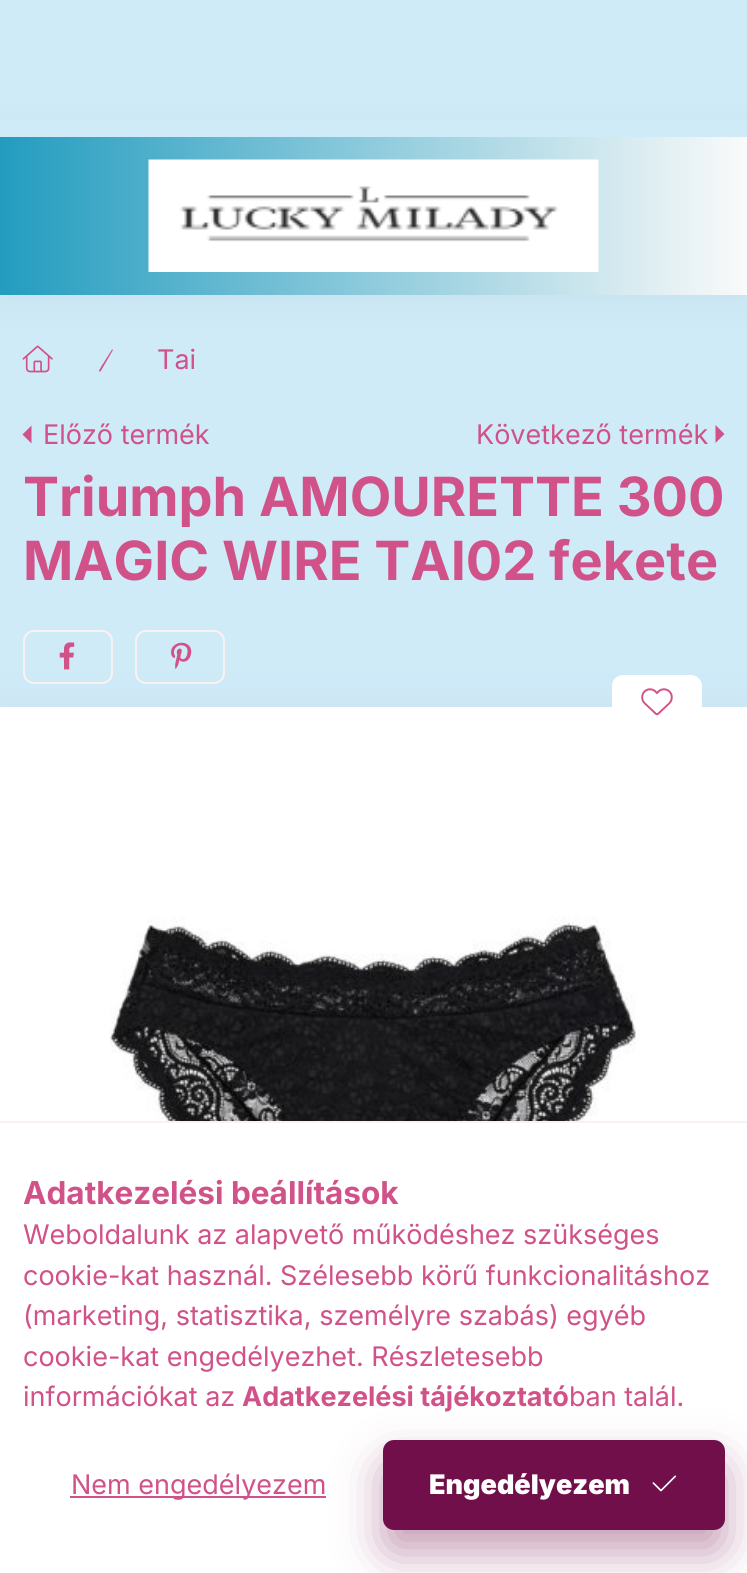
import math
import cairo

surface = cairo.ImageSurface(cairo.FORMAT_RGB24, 747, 1573)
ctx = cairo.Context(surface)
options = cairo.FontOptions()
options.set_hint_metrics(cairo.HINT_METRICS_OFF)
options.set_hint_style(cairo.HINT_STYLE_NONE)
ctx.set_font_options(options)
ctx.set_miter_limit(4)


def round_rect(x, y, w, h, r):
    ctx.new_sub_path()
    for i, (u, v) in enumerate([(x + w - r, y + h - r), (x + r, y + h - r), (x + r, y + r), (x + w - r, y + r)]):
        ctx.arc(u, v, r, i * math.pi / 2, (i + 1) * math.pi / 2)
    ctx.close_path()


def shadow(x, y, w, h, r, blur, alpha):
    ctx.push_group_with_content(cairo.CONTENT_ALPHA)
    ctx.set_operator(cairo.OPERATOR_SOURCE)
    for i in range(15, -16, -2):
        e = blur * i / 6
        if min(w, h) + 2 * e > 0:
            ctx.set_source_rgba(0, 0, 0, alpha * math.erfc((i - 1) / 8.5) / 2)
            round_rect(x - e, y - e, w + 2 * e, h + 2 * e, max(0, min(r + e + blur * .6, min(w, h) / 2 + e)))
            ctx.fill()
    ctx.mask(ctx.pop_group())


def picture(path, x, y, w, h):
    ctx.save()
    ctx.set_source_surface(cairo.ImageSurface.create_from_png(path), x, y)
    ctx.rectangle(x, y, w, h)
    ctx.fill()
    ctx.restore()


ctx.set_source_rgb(0.812, 0.918, 0.969)
ctx.paint()
picture("img2.png", 22, 345, 31, 28)
ctx.set_source_rgb(0.816, 0.322, 0.537)
ctx.new_path()
ctx.move_to(112.5, 349.5)
ctx.line_to(112, 349.5)
ctx.line_to(101, 367)
ctx.curve_to(100.5, 368.5, 98, 371, 99.5, 371.5)
ctx.line_to(100.5, 371.5)
ctx.line_to(113, 350)
ctx.close_path()
ctx.fill()
ctx.set_source_rgb(0, 0, 0)
shadow(0, 137, 747, 158, 0, 22.5, 0.05)
gradient = cairo.LinearGradient(0, 788, 747, 788)
gradient.add_color_stop_rgba(0, 0.137, 0.612, 0.749, 1)
gradient.add_color_stop_rgba(1, 0.98, 0.98, 0.98, 1)
ctx.set_source(gradient)
ctx.rectangle(0, 137, 747, 158)
ctx.fill()
picture("img1.png", 148, 159, 451, 113)
ctx.set_source_rgb(0.812, 0.918, 0.969)
ctx.rectangle(0, 119, 747, 18)
ctx.fill()
ctx.select_font_face("Inter")
ctx.set_font_size(27)
ctx.set_source_rgb(0.816, 0.322, 0.537)
ctx.move_to(157, 369)
ctx.show_text("Tai")
ctx.new_path()
ctx.move_to(31.5, 443.5)
ctx.line_to(31.5, 425.5)
ctx.line_to(22.5, 434.5)
ctx.close_path()
ctx.fill()
ctx.move_to(43, 444)
ctx.show_text("Előző termék")
ctx.move_to(476, 444)
ctx.show_text("Következő termék")
ctx.new_path()
ctx.move_to(715.5, 443)
ctx.line_to(715.5, 425)
ctx.line_to(724.5, 434)
ctx.close_path()
ctx.fill()
ctx.select_font_face("Inter", cairo.FONT_SLANT_NORMAL, cairo.FONT_WEIGHT_BOLD)
ctx.set_font_size(54)
ctx.move_to(23, 516)
ctx.show_text("Triumph AMOURETTE 300")
ctx.move_to(23, 580)
ctx.show_text("MAGIC WIRE TAI02 fekete")
ctx.set_source_rgb(0.443, 0.059, 0.29)
shadow(0, 707, 747, 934, 0, 22.5, 0.05)
round_rect(24, 631, 88, 52, 10)
ctx.set_source_rgb(0.988, 0.945, 0.945)
ctx.stroke()
picture("img3.png", 59, 642, 16, 28)
round_rect(136, 631, 88, 52, 10)
ctx.stroke()
picture("img4.png", 171, 642, 21, 27)
ctx.set_source_rgb(1, 1, 1)
ctx.rectangle(0, 707, 747, 414)
ctx.fill()
round_rect(612, 675, 90, 54, 11)
ctx.fill()
picture("img5.png", 641, 688, 32, 28)
picture("img6.png", 109, 916, 590, 205)
ctx.rectangle(0, 1123, 747, 450)
ctx.fill()
ctx.set_source_rgb(0.988, 0.945, 0.945)
ctx.rectangle(0, 1121, 747, 2)
ctx.fill()
ctx.set_font_size(31.5)
ctx.set_source_rgb(0.816, 0.322, 0.537)
ctx.move_to(23, 1204)
ctx.show_text("Adatkezelési beállítások")
ctx.select_font_face("Inter")
ctx.set_font_size(27)
ctx.move_to(23, 1244)
ctx.show_text("Weboldalunk az alapvető működéshez szükséges")
ctx.move_to(23, 1285)
ctx.show_text("cookie-kat használ. Szélesebb körű funkcionalitáshoz")
ctx.move_to(23, 1325)
ctx.show_text("(marketing, statisztika, személyre szabás) egyéb")
ctx.move_to(23, 1366)
ctx.show_text("cookie-kat engedélyezhet. Részletesebb")
ctx.move_to(23, 1406)
ctx.show_text("információkat az")
ctx.select_font_face("Inter", cairo.FONT_SLANT_NORMAL, cairo.FONT_WEIGHT_BOLD)
ctx.move_to(242, 1406)
ctx.show_text("Adatkezelési tájékoztató")
ctx.select_font_face("Inter")
ctx.move_to(569, 1406)
ctx.show_text("ban talál.")
ctx.rectangle(70, 1496, 256, 2)
ctx.fill()
ctx.move_to(71, 1494)
ctx.show_text("Nem engedélyezem")
ctx.set_source_rgb(0.443, 0.059, 0.29)
shadow(383, 1463, 342, 90, 11, 22.5, 0.4)
ctx.set_source_rgb(0.443, 0.059, 0.29)
round_rect(384, 1441, 340, 88, 10)
ctx.fill_preserve()
ctx.stroke()
ctx.select_font_face("Inter Black")
ctx.set_source_rgb(1, 1, 1)
ctx.move_to(429, 1494)
ctx.show_text("Engedélyezem")
picture("img7.png", 652, 1475, 25, 17)
surface.write_to_png("page.png")
